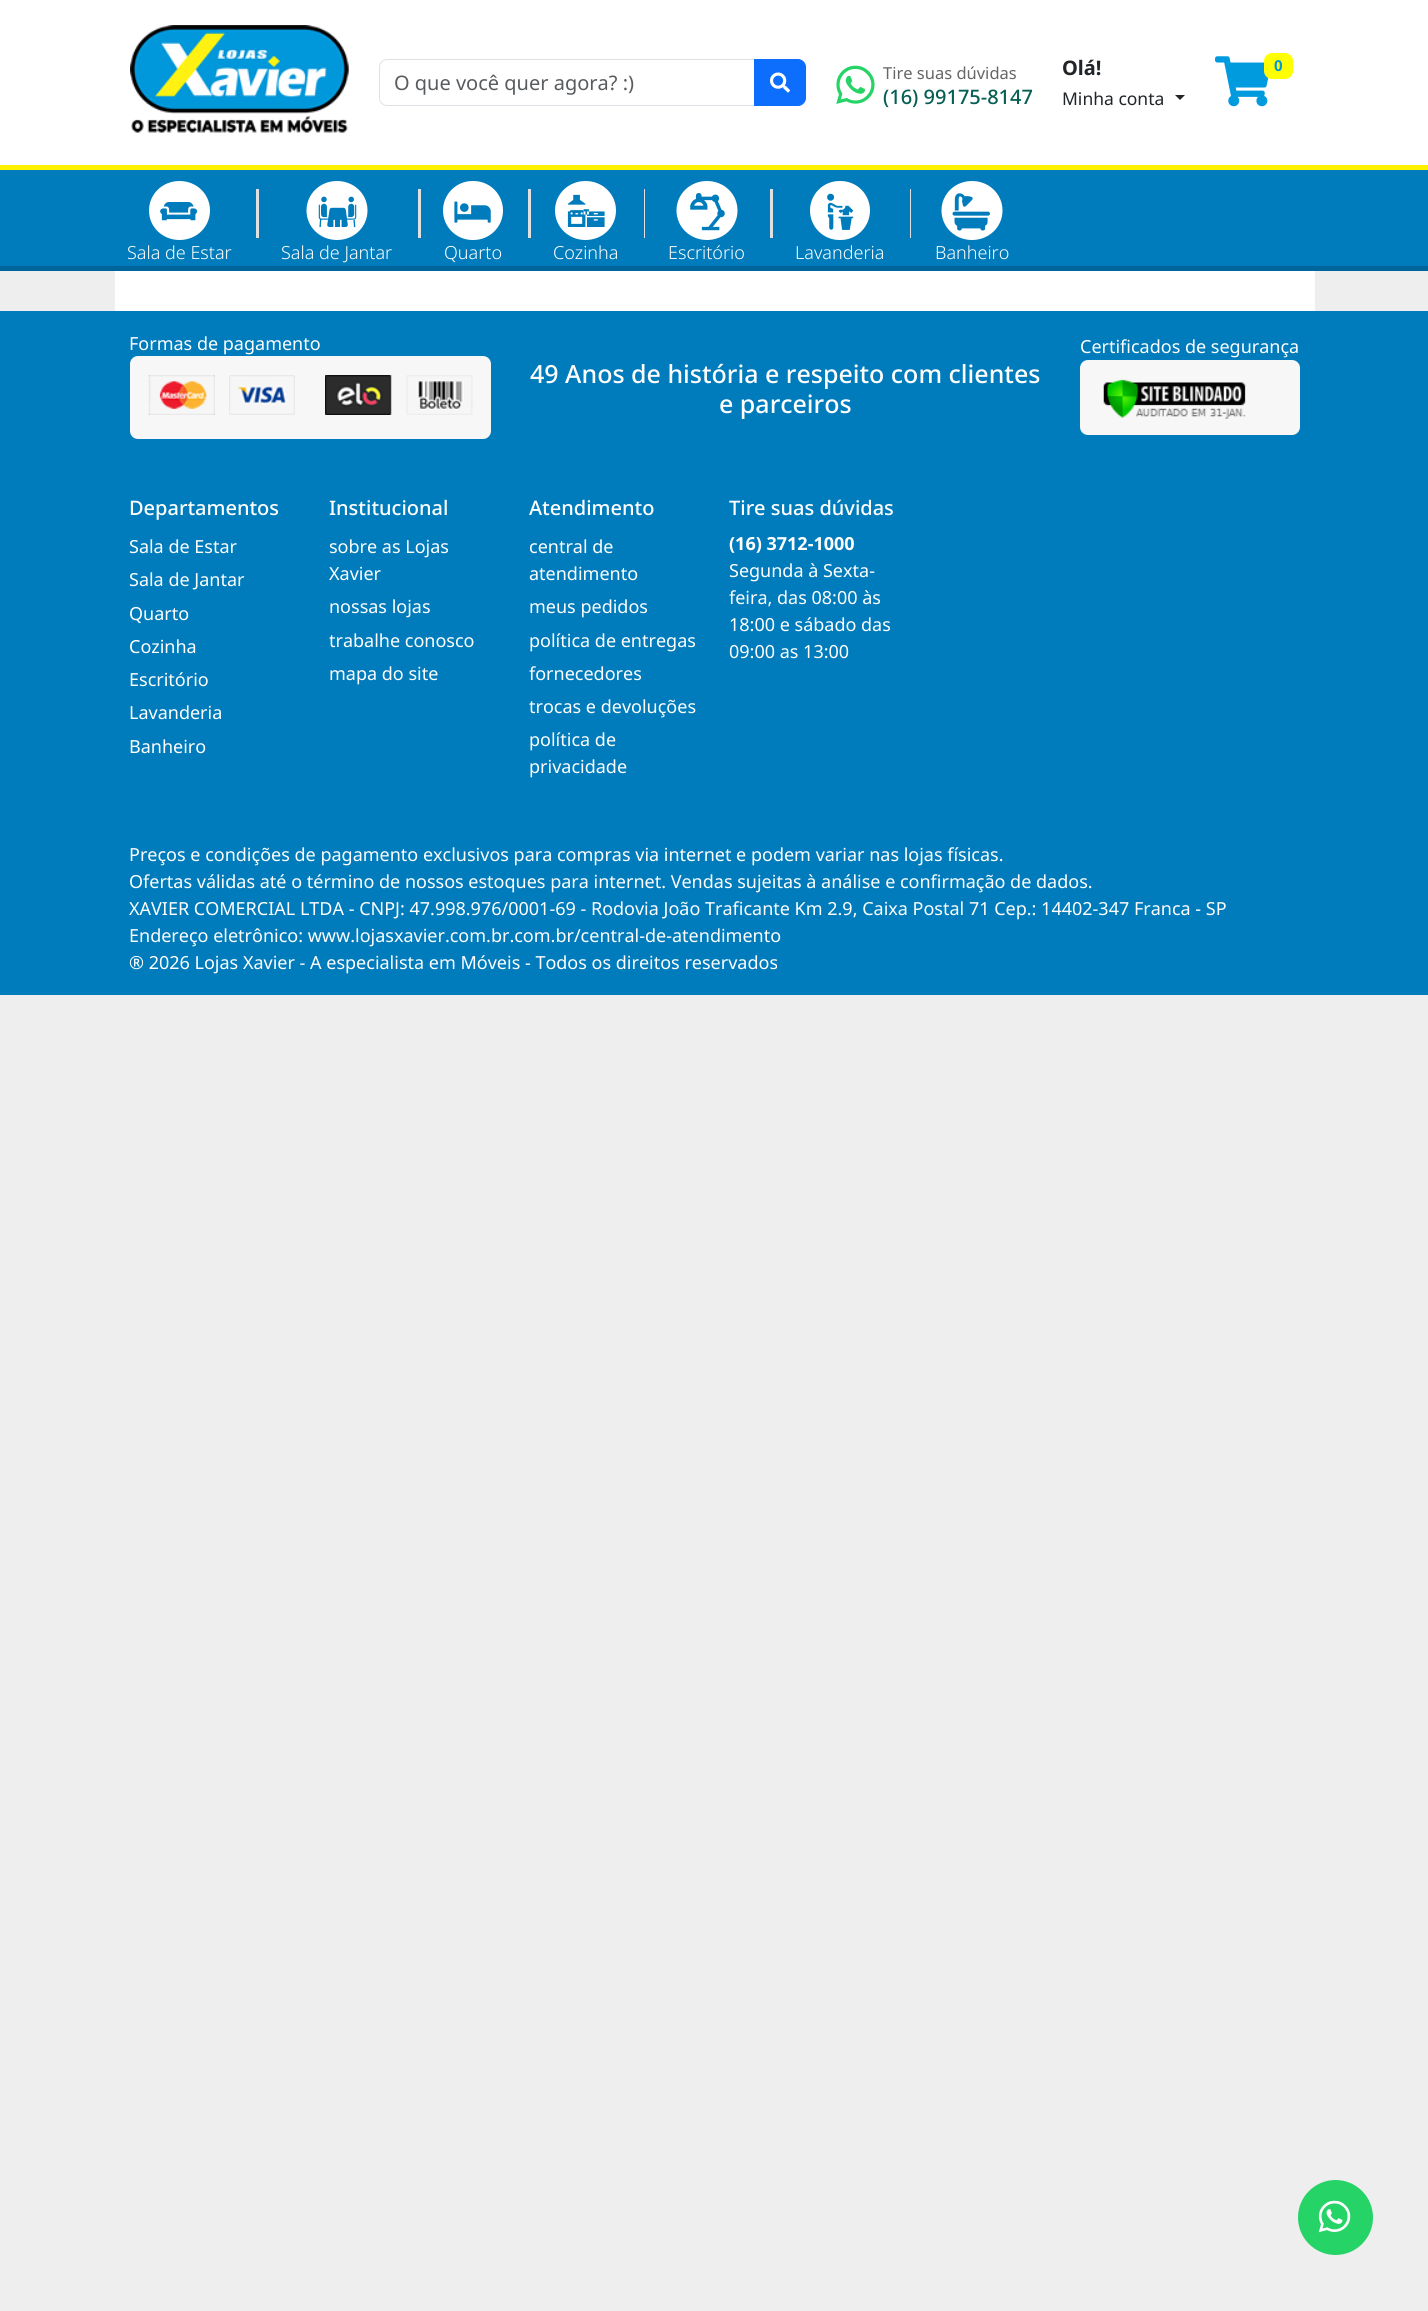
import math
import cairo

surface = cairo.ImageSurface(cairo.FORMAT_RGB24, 1428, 2311)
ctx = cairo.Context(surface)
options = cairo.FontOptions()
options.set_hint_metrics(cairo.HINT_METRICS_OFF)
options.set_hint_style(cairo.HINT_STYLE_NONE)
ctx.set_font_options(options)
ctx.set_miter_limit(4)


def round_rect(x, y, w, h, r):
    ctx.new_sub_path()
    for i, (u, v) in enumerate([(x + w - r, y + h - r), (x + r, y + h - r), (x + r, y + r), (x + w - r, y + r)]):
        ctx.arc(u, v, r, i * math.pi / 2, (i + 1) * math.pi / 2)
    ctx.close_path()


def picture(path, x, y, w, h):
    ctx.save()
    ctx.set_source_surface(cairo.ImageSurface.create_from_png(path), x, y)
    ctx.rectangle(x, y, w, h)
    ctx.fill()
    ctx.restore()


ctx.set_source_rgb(0.933, 0.933, 0.933)
ctx.paint()
ctx.set_source_rgb(1, 1, 1)
ctx.rectangle(0, 0, 1428, 165)
ctx.fill()
picture("img1.png", 130, 25, 219, 108)
ctx.new_path()
ctx.move_to(387, 59.5)
ctx.line_to(754.5, 59.5)
ctx.line_to(754.5, 105.5)
ctx.line_to(387, 105.5)
ctx.curve_to(383, 105.5, 379.5, 102, 379.5, 98)
ctx.line_to(379.5, 67)
ctx.curve_to(379.5, 63, 383, 59.5, 387, 59.5)
ctx.close_path()
ctx.set_source_rgb(0.871, 0.886, 0.902)
ctx.set_line_width(1)
ctx.stroke()
ctx.select_font_face("Noto Sans")
ctx.set_font_size(20)
ctx.set_source_rgb(0.349, 0.361, 0.373)
ctx.move_to(394, 90)
ctx.show_text("O que você quer agora? :)")
ctx.set_source_rgb(0.051, 0.431, 0.992)
ctx.new_path()
ctx.move_to(754.5, 59.5)
ctx.line_to(798, 59.5)
ctx.curve_to(802, 59.5, 805.5, 63, 805.5, 67)
ctx.line_to(805.5, 98)
ctx.curve_to(805.5, 102, 802, 105.5, 798, 105.5)
ctx.line_to(754.5, 105.5)
ctx.close_path()
ctx.fill_preserve()
ctx.stroke()
picture("img2.png", 770, 72, 20, 21)
picture("img3.png", 836, 65, 39, 39)
ctx.set_font_size(16.5)
ctx.set_source_rgb(0.4, 0.4, 0.4)
ctx.move_to(883, 79)
ctx.show_text("Tire suas dúvidas")
ctx.select_font_face("Noto Sans Medium")
ctx.set_font_size(20)
ctx.set_source_rgb(0.027, 0.369, 0.329)
ctx.move_to(883, 104)
ctx.show_text("(16) 99175-8147")
ctx.select_font_face("Noto Sans", cairo.FONT_SLANT_NORMAL, cairo.FONT_WEIGHT_BOLD)
ctx.set_source_rgb(0.129, 0.145, 0.161)
ctx.move_to(1062, 75)
ctx.show_text("Olá!")
ctx.select_font_face("Noto Sans")
ctx.set_font_size(17.5)
ctx.move_to(1062, 105)
ctx.show_text("Minha conta")
ctx.new_path()
ctx.move_to(1175, 95)
ctx.line_to(1185, 95)
ctx.line_to(1180, 100)
ctx.close_path()
ctx.fill()
picture("img4.png", 1215, 56, 54, 51)
ctx.set_source_rgb(1, 1, 0)
round_rect(1264, 53, 29, 26, 8)
ctx.fill()
ctx.select_font_face("Noto Sans", cairo.FONT_SLANT_NORMAL, cairo.FONT_WEIGHT_BOLD)
ctx.set_font_size(15)
ctx.set_source_rgb(0, 0.604, 0.871)
ctx.move_to(1274, 71)
ctx.show_text("0")
ctx.set_source_rgb(0, 0.486, 0.737)
ctx.rectangle(0, 170, 1428, 96)
ctx.fill()
ctx.set_source_rgb(1, 0.941, 0)
ctx.rectangle(0, 165, 1428, 5)
ctx.fill()
ctx.set_source_rgb(0, 0.396, 0.608)
ctx.rectangle(0, 266, 1428, 5)
ctx.fill()
ctx.set_source_rgb(1, 1, 1)
ctx.new_path()
ctx.move_to(179.5, 181)
ctx.curve_to(196.5, 181, 210, 194, 210, 210.5)
ctx.curve_to(210, 227, 196.5, 240, 179.5, 240)
ctx.curve_to(162.5, 240, 149, 227, 149, 210.5)
ctx.curve_to(149, 194, 162.5, 181, 179.5, 181)
ctx.close_path()
ctx.fill()
picture("img5.png", 160, 202, 38, 19)
ctx.select_font_face("Noto Sans Light")
ctx.set_font_size(18)
ctx.move_to(127, 259)
ctx.show_text("Sala de Estar")
ctx.set_source_rgb(0.878, 0.878, 0.878)
ctx.rectangle(256, 189, 3, 49)
ctx.fill()
ctx.set_source_rgb(1, 1, 1)
ctx.new_path()
ctx.move_to(337, 181)
ctx.curve_to(354, 181, 367.5, 194, 367.5, 210.5)
ctx.curve_to(367.5, 227, 354, 240, 337, 240)
ctx.curve_to(320, 240, 306.5, 227, 306.5, 210.5)
ctx.curve_to(306.5, 194, 320, 181, 337, 181)
ctx.close_path()
ctx.fill()
picture("img6.png", 318, 196, 39, 32)
ctx.move_to(281, 259)
ctx.show_text("Sala de Jantar")
ctx.set_source_rgb(0.878, 0.878, 0.878)
ctx.rectangle(418, 189, 3, 49)
ctx.fill()
ctx.set_source_rgb(1, 1, 1)
round_rect(443, 181, 60, 59, 29.5)
ctx.fill()
picture("img7.png", 454, 201, 37, 22)
ctx.move_to(444, 259)
ctx.show_text("Quarto")
ctx.set_source_rgb(0.878, 0.878, 0.878)
ctx.rectangle(528, 189, 3, 49)
ctx.fill()
ctx.set_source_rgb(1, 1, 1)
ctx.new_path()
ctx.move_to(585.5, 181)
ctx.curve_to(602.5, 181, 616, 194, 616, 210.5)
ctx.curve_to(616, 227, 602.5, 240, 585.5, 240)
ctx.curve_to(568.5, 240, 555, 227, 555, 210.5)
ctx.curve_to(555, 194, 568.5, 181, 585.5, 181)
ctx.close_path()
ctx.fill()
picture("img8.png", 567, 194, 38, 33)
ctx.move_to(553, 259)
ctx.show_text("Cozinha")
ctx.set_source_rgb(0.878, 0.878, 0.878)
ctx.rectangle(644, 189, 1, 49)
ctx.fill()
ctx.set_source_rgb(1, 1, 1)
ctx.new_path()
ctx.move_to(707, 181)
ctx.curve_to(724, 181, 737.5, 194, 737.5, 210.5)
ctx.curve_to(737.5, 227, 724, 240, 707, 240)
ctx.curve_to(690, 240, 676.5, 227, 676.5, 210.5)
ctx.curve_to(676.5, 194, 690, 181, 707, 181)
ctx.close_path()
ctx.fill()
picture("img9.png", 690, 193, 35, 38)
ctx.move_to(668, 259)
ctx.show_text("Escritório")
ctx.set_source_rgb(0.878, 0.878, 0.878)
ctx.rectangle(770, 189, 3, 49)
ctx.fill()
ctx.set_source_rgb(1, 1, 1)
round_rect(810, 181, 60, 59, 29.5)
ctx.fill()
picture("img10.png", 827, 193, 27, 37)
ctx.move_to(795, 259)
ctx.show_text("Lavanderia")
ctx.set_source_rgb(0.878, 0.878, 0.878)
ctx.rectangle(910, 189, 1, 49)
ctx.fill()
ctx.set_source_rgb(1, 1, 1)
ctx.new_path()
ctx.move_to(972, 181)
ctx.curve_to(989, 181, 1002.5, 194, 1002.5, 210.5)
ctx.curve_to(1002.5, 227, 989, 240, 972, 240)
ctx.curve_to(955, 240, 941.5, 227, 941.5, 210.5)
ctx.curve_to(941.5, 194, 955, 181, 972, 181)
ctx.close_path()
ctx.fill()
picture("img11.png", 952, 193, 38, 38)
ctx.move_to(935, 259)
ctx.show_text("Banheiro")
ctx.rectangle(115, 271, 1200, 40)
ctx.fill()
ctx.set_source_rgb(0, 0.482, 0.733)
ctx.rectangle(0, 311, 1428, 684)
ctx.fill()
ctx.select_font_face("Noto Sans")
ctx.set_source_rgb(1, 1, 1)
ctx.move_to(129, 350)
ctx.show_text("Formas de pagamento")
ctx.set_source_rgb(0.965, 0.965, 0.965)
round_rect(130, 356, 361, 83, 8)
ctx.fill()
picture("img12.png", 148, 375, 67, 40)
picture("img13.png", 229, 375, 66, 40)
picture("img14.png", 325, 375, 67, 40)
picture("img15.png", 406, 375, 67, 40)
ctx.set_source_rgb(1, 1, 1)
ctx.move_to(1080, 353)
ctx.show_text("Certificados de segurança")
ctx.set_source_rgb(0.965, 0.965, 0.965)
round_rect(1080, 360, 220, 75, 8)
ctx.fill()
picture("img16.png", 1103, 379, 143, 40)
ctx.select_font_face("Noto Sans Medium")
ctx.set_font_size(25)
ctx.set_source_rgb(1, 1, 1)
ctx.move_to(530, 383)
ctx.show_text("49 Anos de história e respeito com clientes")
ctx.move_to(719, 413)
ctx.show_text("e parceiros")
ctx.set_font_size(20)
ctx.move_to(129, 515)
ctx.show_text("Departamentos")
ctx.select_font_face("Noto Sans")
ctx.set_font_size(18)
ctx.move_to(129, 553)
ctx.show_text("Sala de Estar")
ctx.move_to(129, 586)
ctx.show_text("Sala de Jantar")
ctx.move_to(129, 620)
ctx.show_text("Quarto")
ctx.move_to(129, 653)
ctx.show_text("Cozinha")
ctx.move_to(129, 686)
ctx.show_text("Escritório")
ctx.move_to(129, 719)
ctx.show_text("Lavanderia")
ctx.move_to(129, 753)
ctx.show_text("Banheiro")
ctx.select_font_face("Noto Sans Medium")
ctx.set_font_size(20)
ctx.move_to(329, 515)
ctx.show_text("Institucional")
ctx.select_font_face("Noto Sans")
ctx.set_font_size(18)
ctx.move_to(329, 553)
ctx.show_text("sobre as Lojas")
ctx.move_to(329, 580)
ctx.show_text("Xavier")
ctx.move_to(329, 613)
ctx.show_text("nossas lojas")
ctx.move_to(329, 647)
ctx.show_text("trabalhe conosco")
ctx.move_to(329, 680)
ctx.show_text("mapa do site")
ctx.select_font_face("Noto Sans Medium")
ctx.set_font_size(20)
ctx.move_to(529, 515)
ctx.show_text("Atendimento")
ctx.select_font_face("Noto Sans")
ctx.set_font_size(18)
ctx.move_to(529, 553)
ctx.show_text("central de")
ctx.move_to(529, 580)
ctx.show_text("atendimento")
ctx.move_to(529, 613)
ctx.show_text("meus pedidos")
ctx.move_to(529, 647)
ctx.show_text("política de entregas")
ctx.move_to(529, 680)
ctx.show_text("fornecedores")
ctx.move_to(529, 713)
ctx.show_text("trocas e devoluções")
ctx.move_to(529, 746)
ctx.show_text("política de")
ctx.move_to(529, 773)
ctx.show_text("privacidade")
ctx.select_font_face("Noto Sans Medium")
ctx.set_font_size(20)
ctx.move_to(729, 515)
ctx.show_text("Tire suas dúvidas")
ctx.select_font_face("Noto Sans", cairo.FONT_SLANT_NORMAL, cairo.FONT_WEIGHT_BOLD)
ctx.set_font_size(18)
ctx.move_to(729, 550)
ctx.show_text("(16) 3712-1000")
ctx.select_font_face("Noto Sans")
ctx.move_to(729, 577)
ctx.show_text("Segunda à Sexta-")
ctx.move_to(729, 604)
ctx.show_text("feira, das 08:00 às")
ctx.move_to(729, 631)
ctx.show_text("18:00 e sábado das")
ctx.move_to(729, 658)
ctx.show_text("09:00 as 13:00")
ctx.move_to(129, 861)
ctx.show_text("Preços e condições de pagamento exclusivos para compras via internet e podem variar nas lojas físicas.")
ctx.move_to(129, 888)
ctx.show_text("Ofertas válidas até o término de nossos estoques para internet. Vendas sujeitas à análise e confirmação de dados.")
ctx.move_to(129, 915)
ctx.show_text("XAVIER COMERCIAL LTDA - CNPJ: 47.998.976/0001-69 - Rodovia João Traficante Km 2.9, Caixa Postal 71 Cep.: 14402-347 Franca - SP")
ctx.move_to(129, 942)
ctx.show_text("Endereço eletrônico: www.lojasxavier.com.br.com.br/central-de-atendimento")
ctx.move_to(129, 969)
ctx.show_text("® 2026 Lojas Xavier - A especialista em Móveis - Todos os direitos reservados")
ctx.set_source_rgb(0.145, 0.827, 0.4)
ctx.new_path()
ctx.arc(1335.5, 2217.5, 37.5, 0, 2 * math.pi)
ctx.fill()
picture("img17.png", 1318, 2200, 33, 33)
surface.write_to_png("page.png")
